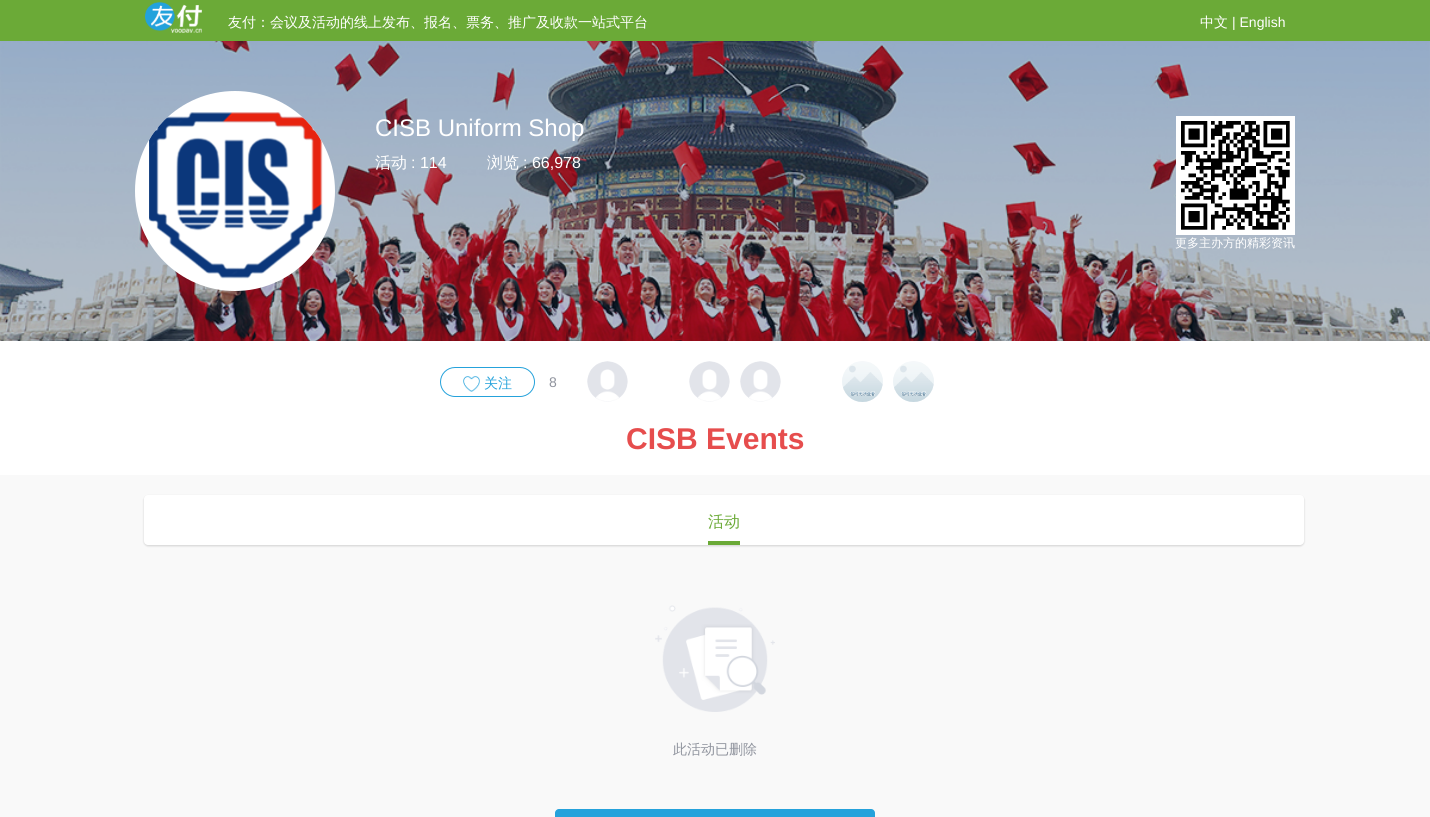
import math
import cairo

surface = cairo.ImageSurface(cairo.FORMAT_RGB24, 1430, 817)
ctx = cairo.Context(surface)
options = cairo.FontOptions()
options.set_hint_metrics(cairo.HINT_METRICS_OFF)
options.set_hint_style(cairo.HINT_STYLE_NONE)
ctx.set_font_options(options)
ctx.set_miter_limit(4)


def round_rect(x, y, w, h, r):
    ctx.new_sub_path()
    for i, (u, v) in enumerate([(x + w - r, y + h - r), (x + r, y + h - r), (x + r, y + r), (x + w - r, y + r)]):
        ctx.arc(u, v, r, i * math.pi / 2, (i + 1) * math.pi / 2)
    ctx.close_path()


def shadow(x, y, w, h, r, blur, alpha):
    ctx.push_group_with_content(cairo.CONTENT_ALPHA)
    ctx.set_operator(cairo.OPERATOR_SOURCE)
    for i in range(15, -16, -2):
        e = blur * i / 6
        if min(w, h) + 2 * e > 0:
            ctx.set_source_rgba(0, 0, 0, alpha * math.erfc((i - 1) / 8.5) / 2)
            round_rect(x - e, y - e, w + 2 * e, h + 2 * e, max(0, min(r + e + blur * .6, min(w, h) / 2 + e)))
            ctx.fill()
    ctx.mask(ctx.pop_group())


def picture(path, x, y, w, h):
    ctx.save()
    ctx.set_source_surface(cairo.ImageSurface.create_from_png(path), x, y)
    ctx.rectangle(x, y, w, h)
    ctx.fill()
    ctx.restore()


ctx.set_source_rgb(1, 1, 1)
ctx.paint()
ctx.set_source_rgb(0.42, 0.667, 0.216)
ctx.rectangle(0, 0, 1430, 41)
ctx.fill()
picture("img1.png", 145, 2, 57, 31)
ctx.select_font_face("WenQuanYi Zen Hei Medium")
ctx.set_font_size(14)
ctx.set_source_rgb(1, 1, 1)
ctx.move_to(228, 27)
ctx.show_text("友付：会议及活动的线上发布、报名、票务、推广及收款一站式平台")
ctx.move_to(1200, 27)
ctx.show_text("中文")
ctx.select_font_face("Liberation Sans")
ctx.move_to(1232, 27)
ctx.show_text("| English")
picture("img2.png", 0, 41, 1430, 300)
ctx.arc(235, 191, 100, 0, 2 * math.pi)
ctx.fill()
picture("img3.png", 149, 112, 174, 167)
ctx.set_font_size(24)
ctx.move_to(375, 136)
ctx.show_text("CISB Uniform Shop")
ctx.select_font_face("WenQuanYi Zen Hei Medium")
ctx.set_font_size(16)
ctx.move_to(375, 168)
ctx.show_text("活动")
ctx.select_font_face("Liberation Sans")
ctx.move_to(411, 168)
ctx.show_text(": 114")
ctx.select_font_face("WenQuanYi Zen Hei Medium")
ctx.move_to(487, 168)
ctx.show_text("浏览")
ctx.select_font_face("Liberation Sans")
ctx.move_to(523, 168)
ctx.show_text(": 66,978")
ctx.rectangle(1178.5, 118.5, 114, 114)
ctx.set_line_width(5)
ctx.stroke()
picture("img4.png", 1181, 121, 109, 109)
ctx.select_font_face("WenQuanYi Zen Hei Medium")
ctx.set_font_size(12)
ctx.move_to(1175, 247)
ctx.show_text("更多主办方的精彩资讯")
round_rect(440.5, 367.5, 94, 29, 14.5)
ctx.set_source_rgb(0.145, 0.635, 0.859)
ctx.set_line_width(1)
ctx.stroke()
picture("img5.png", 463, 376, 17, 16)
ctx.set_font_size(14)
ctx.move_to(484, 388)
ctx.show_text("关注")
ctx.select_font_face("Liberation Sans")
ctx.set_source_rgb(0.561, 0.576, 0.616)
ctx.move_to(549, 387)
ctx.show_text("8")
picture("img6.png", 587, 361, 41, 41)
picture("img6.png", 689, 361, 41, 41)
picture("img7.png", 740, 361, 41, 41)
picture("img8.png", 842, 361, 41, 41)
picture("img8.png", 893, 361, 41, 41)
ctx.select_font_face("Liberation Sans", cairo.FONT_SLANT_NORMAL, cairo.FONT_WEIGHT_BOLD)
ctx.set_font_size(30)
ctx.set_source_rgb(0.902, 0.302, 0.302)
ctx.move_to(626, 449)
ctx.show_text("CISB Events")
ctx.set_source_rgb(0.973, 0.973, 0.973)
ctx.rectangle(0, 475, 1430, 342)
ctx.fill()
ctx.set_source_rgb(0, 0, 0)
shadow(144, 496, 1160, 50, 4, 1, 0.16)
ctx.set_source_rgb(1, 1, 1)
round_rect(144, 495, 1160, 50, 4)
ctx.fill()
ctx.set_source_rgb(0.42, 0.667, 0.216)
ctx.rectangle(708, 541, 32, 4)
ctx.fill()
ctx.select_font_face("WenQuanYi Zen Hei Medium")
ctx.set_font_size(16)
ctx.move_to(708, 527)
ctx.show_text("活动")
picture("img9.png", 655, 605, 120, 107)
ctx.set_font_size(14)
ctx.set_source_rgb(0.561, 0.576, 0.616)
ctx.move_to(673, 754)
ctx.show_text("此活动已删除")
ctx.set_source_rgb(0.145, 0.635, 0.859)
round_rect(555, 809, 320, 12, 4)
ctx.fill()
surface.write_to_png("page.png")
